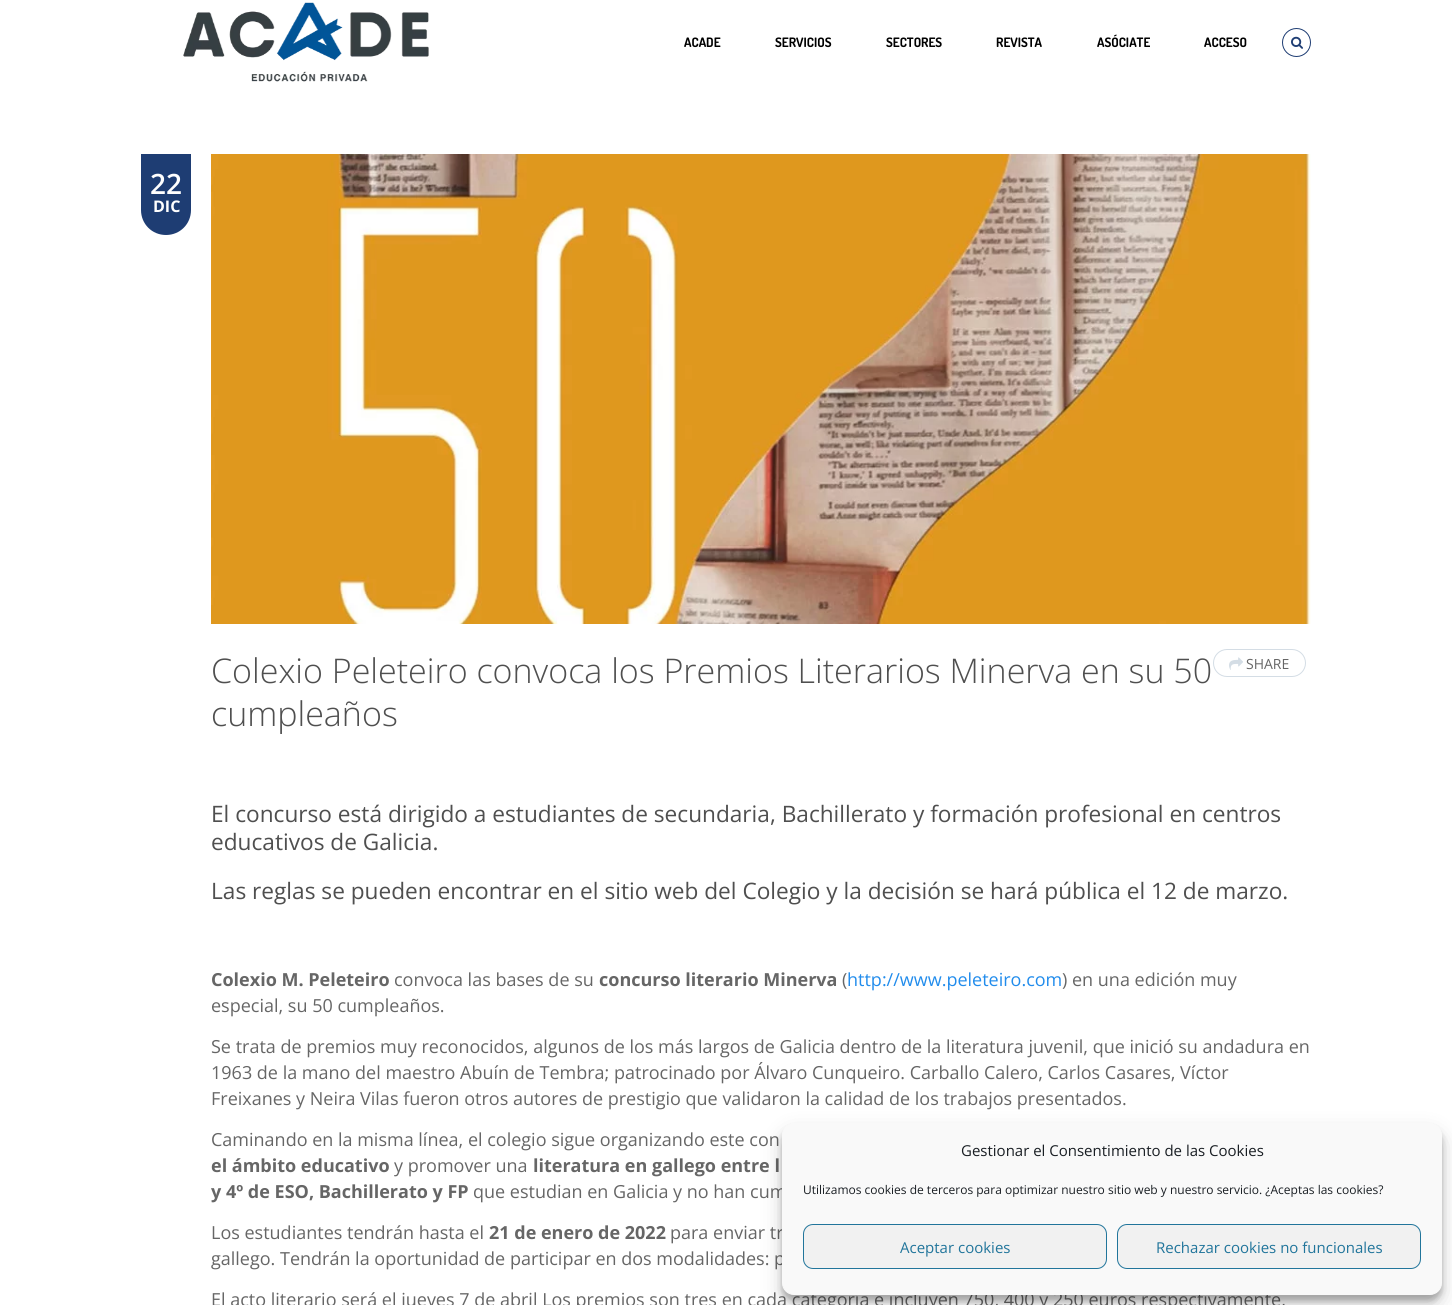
import math
import cairo

surface = cairo.ImageSurface(cairo.FORMAT_RGB24, 1452, 1305)
ctx = cairo.Context(surface)
options = cairo.FontOptions()
options.set_hint_metrics(cairo.HINT_METRICS_OFF)
options.set_hint_style(cairo.HINT_STYLE_NONE)
ctx.set_font_options(options)
ctx.set_miter_limit(4)


def round_rect(x, y, w, h, r):
    ctx.new_sub_path()
    for i, (u, v) in enumerate([(x + w - r, y + h - r), (x + r, y + h - r), (x + r, y + r), (x + w - r, y + r)]):
        ctx.arc(u, v, r, i * math.pi / 2, (i + 1) * math.pi / 2)
    ctx.close_path()


def shadow(x, y, w, h, r, blur, alpha):
    ctx.push_group_with_content(cairo.CONTENT_ALPHA)
    ctx.set_operator(cairo.OPERATOR_SOURCE)
    for i in range(15, -16, -2):
        e = blur * i / 6
        if min(w, h) + 2 * e > 0:
            ctx.set_source_rgba(0, 0, 0, alpha * math.erfc((i - 1) / 8.5) / 2)
            round_rect(x - e, y - e, w + 2 * e, h + 2 * e, max(0, min(r + e + blur * .6, min(w, h) / 2 + e)))
            ctx.fill()
    ctx.mask(ctx.pop_group())


def picture(path, x, y, w, h):
    ctx.save()
    ctx.set_source_surface(cairo.ImageSurface.create_from_png(path), x, y)
    ctx.rectangle(x, y, w, h)
    ctx.fill()
    ctx.restore()


ctx.set_source_rgb(1, 1, 1)
ctx.paint()
picture("img1.png", 183, 2, 246, 80)
ctx.select_font_face("Dosis", cairo.FONT_SLANT_NORMAL, cairo.FONT_WEIGHT_BOLD)
ctx.set_font_size(13)
ctx.set_source_rgb(0, 0, 0)
ctx.move_to(684, 47)
ctx.show_text("ACADE")
ctx.move_to(775, 47)
ctx.show_text("SERVICIOS")
ctx.move_to(886, 47)
ctx.show_text("SECTORES")
ctx.move_to(996, 47)
ctx.show_text("REVISTA")
ctx.move_to(1097, 47)
ctx.show_text("ASÓCIATE")
ctx.move_to(1204, 47)
ctx.show_text("ACCESO")
ctx.new_path()
ctx.arc(1296.5, 42.5, 14, 0, 2 * math.pi)
ctx.set_source_rgb(0.118, 0.239, 0.451)
ctx.set_line_width(1)
ctx.stroke()
picture("img2.png", 1291, 36, 12, 13)
ctx.new_path()
ctx.move_to(141, 154)
ctx.line_to(191, 154)
ctx.line_to(191, 210)
ctx.curve_to(191, 224, 180, 235, 166, 235)
ctx.curve_to(152, 235, 141, 224, 141, 210)
ctx.close_path()
ctx.fill()
ctx.select_font_face("Open Sans SemiBold")
ctx.set_font_size(28)
ctx.set_source_rgb(1, 1, 1)
ctx.move_to(150, 194)
ctx.show_text("22")
ctx.select_font_face("Open Sans", cairo.FONT_SLANT_NORMAL, cairo.FONT_WEIGHT_BOLD)
ctx.set_font_size(16)
ctx.move_to(153, 212)
ctx.show_text("DIC")
picture("img3.png", 211, 154, 1100, 470)
ctx.select_font_face("Open Sans Light")
ctx.set_font_size(34)
ctx.set_source_rgb(0.31, 0.31, 0.31)
ctx.move_to(211, 683)
ctx.show_text("Colexio Peleteiro convoca los Premios Literarios Minerva en su 50")
ctx.move_to(211, 726)
ctx.show_text("cumpleaños")
round_rect(1213.5, 649.5, 92, 27, 13.5)
ctx.set_source_rgb(0.831, 0.867, 0.898)
ctx.stroke()
picture("img4.png", 1229, 657, 14, 13)
ctx.select_font_face("Open Sans")
ctx.set_font_size(14)
ctx.set_source_rgb(0.4, 0.4, 0.4)
ctx.move_to(1246, 669)
ctx.show_text("SHARE")
ctx.set_font_size(22.65)
ctx.set_source_rgb(0.31, 0.31, 0.31)
ctx.move_to(211, 822)
ctx.show_text("El concurso está dirigido a estudiantes de secundaria, Bachillerato y formación profesional en centros")
ctx.move_to(211, 850)
ctx.show_text("educativos de Galicia.")
ctx.move_to(211, 899)
ctx.show_text("Las reglas se pueden encontrar en el sitio web del Colegio y la decisión se hará pública el 12 de marzo.")
ctx.select_font_face("Open Sans", cairo.FONT_SLANT_NORMAL, cairo.FONT_WEIGHT_BOLD)
ctx.set_font_size(18)
ctx.set_source_rgb(0.4, 0.4, 0.4)
ctx.move_to(211, 986)
ctx.show_text("Colexio M. Peleteiro")
ctx.select_font_face("Open Sans")
ctx.move_to(394, 986)
ctx.show_text("convoca las bases de su")
ctx.select_font_face("Open Sans", cairo.FONT_SLANT_NORMAL, cairo.FONT_WEIGHT_BOLD)
ctx.move_to(599, 986)
ctx.show_text("concurso literario Minerva")
ctx.select_font_face("Open Sans")
ctx.move_to(842, 986)
ctx.show_text("(")
ctx.set_source_rgb(0.129, 0.549, 0.922)
ctx.move_to(847, 986)
ctx.show_text("http://www.peleteiro.com")
ctx.set_source_rgb(0.4, 0.4, 0.4)
ctx.move_to(1062, 986)
ctx.show_text(") en una edición muy")
ctx.move_to(211, 1012)
ctx.show_text("especial, su 50 cumpleaños.")
ctx.move_to(211, 1053)
ctx.show_text("Se trata de premios muy reconocidos, algunos de los más largos de Galicia dentro de la literatura juvenil, que inició su andadura en")
ctx.move_to(211, 1079)
ctx.show_text("1963 de la mano del maestro Abuín de Tembra; patrocinado por Álvaro Cunqueiro. Carballo Calero, Carlos Casares, Víctor")
ctx.move_to(211, 1105)
ctx.show_text("Freixanes y Neira Vilas fueron otros autores de prestigio que validaron la calidad de los trabajos presentados.")
ctx.move_to(211, 1146)
ctx.show_text("Caminando en la misma línea, el colegio sigue organizando este con")
ctx.select_font_face("Open Sans", cairo.FONT_SLANT_NORMAL, cairo.FONT_WEIGHT_BOLD)
ctx.move_to(211, 1172)
ctx.show_text("el ámbito educativo")
ctx.select_font_face("Open Sans")
ctx.move_to(394, 1172)
ctx.show_text("y promover una")
ctx.select_font_face("Open Sans", cairo.FONT_SLANT_NORMAL, cairo.FONT_WEIGHT_BOLD)
ctx.move_to(533, 1172)
ctx.show_text("literatura en gallego entre l")
ctx.move_to(211, 1198)
ctx.show_text("y 4º de ESO, Bachillerato y FP")
ctx.select_font_face("Open Sans")
ctx.move_to(473, 1198)
ctx.show_text("que estudian en Galicia y no han cum")
ctx.move_to(211, 1239)
ctx.show_text("Los estudiantes tendrán hasta el")
ctx.select_font_face("Open Sans", cairo.FONT_SLANT_NORMAL, cairo.FONT_WEIGHT_BOLD)
ctx.move_to(489, 1239)
ctx.show_text("21 de enero de 2022")
ctx.select_font_face("Open Sans")
ctx.move_to(670, 1239)
ctx.show_text("para enviar tr")
ctx.move_to(211, 1265)
ctx.show_text("gallego. Tendrán la oportunidad de participar en dos modalidades: p")
ctx.move_to(211, 1306)
ctx.show_text("El acto literario será el jueves 7 de abril Los premios son tres en cada categoría e incluyen 750, 400 y 250 euros respectivamente,")
ctx.set_source_rgb(0, 0, 0)
shadow(782, 1129, 660, 172, 12, 3, 0.23)
shadow(782, 1133, 660, 172, 12, 10, 0.19)
ctx.set_source_rgb(0.976, 0.976, 0.976)
round_rect(782.5, 1123.5, 659, 171, 11.5)
ctx.fill_preserve()
ctx.stroke()
ctx.set_font_size(15)
ctx.set_source_rgb(0.098, 0.118, 0.137)
ctx.move_to(961, 1156)
ctx.show_text("Gestionar el Consentimiento de las Cookies")
ctx.set_font_size(12)
ctx.move_to(803, 1194)
ctx.show_text("Utilizamos cookies de terceros para optimizar nuestro sitio web y nuestro servicio. ¿Aceptas las cookies?")
ctx.set_source_rgb(0.945, 0.945, 0.945)
round_rect(803.5, 1224.5, 303, 44, 9.5)
ctx.fill_preserve()
ctx.set_source_rgb(0.129, 0.459, 0.608)
ctx.stroke()
ctx.set_font_size(15)
ctx.move_to(900, 1253)
ctx.show_text("Aceptar cookies")
ctx.set_source_rgb(0.945, 0.945, 0.945)
round_rect(1117.5, 1224.5, 303, 44, 9.5)
ctx.fill_preserve()
ctx.set_source_rgb(0.129, 0.459, 0.608)
ctx.stroke()
ctx.move_to(1156, 1253)
ctx.show_text("Rechazar cookies no funcionales")
surface.write_to_png("page.png")
